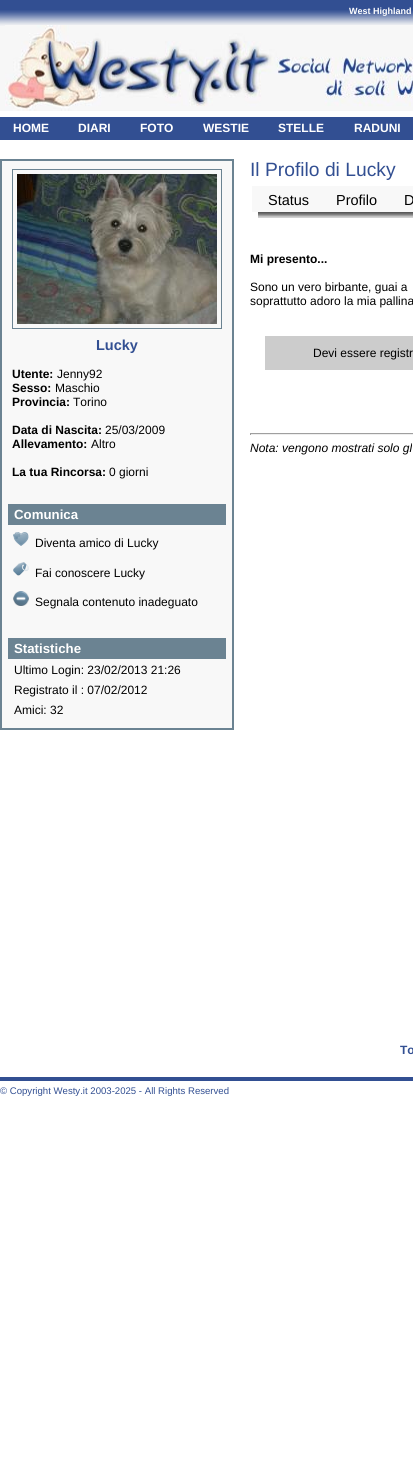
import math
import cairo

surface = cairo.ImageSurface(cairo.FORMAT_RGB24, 413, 1465)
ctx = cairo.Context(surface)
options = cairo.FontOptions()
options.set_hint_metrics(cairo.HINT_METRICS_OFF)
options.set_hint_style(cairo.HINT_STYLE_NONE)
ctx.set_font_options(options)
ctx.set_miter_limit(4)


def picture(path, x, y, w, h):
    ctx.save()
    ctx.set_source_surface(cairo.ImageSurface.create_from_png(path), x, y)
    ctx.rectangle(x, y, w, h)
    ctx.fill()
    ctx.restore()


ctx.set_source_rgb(1, 1, 1)
ctx.paint()
picture("img1.png", 0, 0, 413, 140)
ctx.select_font_face("Liberation Sans", cairo.FONT_SLANT_NORMAL, cairo.FONT_WEIGHT_BOLD)
ctx.set_font_size(9)
ctx.set_source_rgb(1, 1, 1)
ctx.move_to(349, 14)
ctx.show_text("West Highland")
picture("img2.png", 5, 25, 408, 86)
ctx.set_font_size(12)
ctx.move_to(13, 132)
ctx.show_text("HOME")
ctx.move_to(78, 132)
ctx.show_text("DIARI")
ctx.move_to(140, 132)
ctx.show_text("FOTO")
ctx.move_to(203, 132)
ctx.show_text("WESTIE")
ctx.move_to(278, 132)
ctx.show_text("STELLE")
ctx.move_to(354, 132)
ctx.show_text("RADUNI")
ctx.select_font_face("Liberation Sans")
ctx.set_font_size(19.25)
ctx.set_source_rgb(0.196, 0.31, 0.573)
ctx.move_to(250, 176)
ctx.show_text("Il Profilo di Lucky")
picture("img3.png", 258, 212, 155, 6)
ctx.set_source_rgb(0.969, 0.969, 0.969)
ctx.rectangle(252, 186, 161, 26)
ctx.fill()
ctx.set_font_size(14.5)
ctx.set_source_rgb(0, 0, 0)
ctx.move_to(268, 205)
ctx.show_text("Status")
ctx.move_to(336, 205)
ctx.show_text("Profilo")
ctx.move_to(404, 205)
ctx.show_text("D")
ctx.set_source_rgb(0.969, 0.969, 0.969)
ctx.rectangle(1, 160, 232, 569)
ctx.fill_preserve()
ctx.set_source_rgb(0.42, 0.514, 0.573)
ctx.stroke()
ctx.rectangle(12.5, 169.5, 209, 159)
ctx.set_line_width(1)
ctx.stroke()
picture("img4.png", 17, 174, 200, 150)
ctx.select_font_face("Liberation Sans", cairo.FONT_SLANT_NORMAL, cairo.FONT_WEIGHT_BOLD)
ctx.set_source_rgb(0.196, 0.31, 0.573)
ctx.move_to(96, 350)
ctx.show_text("Lucky")
ctx.set_font_size(12)
ctx.set_source_rgb(0, 0, 0)
ctx.move_to(12, 378)
ctx.show_text("Utente:")
ctx.select_font_face("Liberation Sans")
ctx.move_to(57, 378)
ctx.show_text("Jenny92")
ctx.select_font_face("Liberation Sans", cairo.FONT_SLANT_NORMAL, cairo.FONT_WEIGHT_BOLD)
ctx.move_to(12, 392)
ctx.show_text("Sesso:")
ctx.select_font_face("Liberation Sans")
ctx.move_to(55, 392)
ctx.show_text("Maschio")
ctx.select_font_face("Liberation Sans", cairo.FONT_SLANT_NORMAL, cairo.FONT_WEIGHT_BOLD)
ctx.move_to(12, 406)
ctx.show_text("Provincia:")
ctx.select_font_face("Liberation Sans")
ctx.move_to(73, 406)
ctx.show_text("Torino")
ctx.select_font_face("Liberation Sans", cairo.FONT_SLANT_NORMAL, cairo.FONT_WEIGHT_BOLD)
ctx.move_to(12, 434)
ctx.show_text("Data di Nascita:")
ctx.select_font_face("Liberation Sans")
ctx.move_to(105, 434)
ctx.show_text("25/03/2009")
ctx.select_font_face("Liberation Sans", cairo.FONT_SLANT_NORMAL, cairo.FONT_WEIGHT_BOLD)
ctx.move_to(12, 448)
ctx.show_text("Allevamento:")
ctx.select_font_face("Liberation Sans")
ctx.move_to(91, 448)
ctx.show_text("Altro")
ctx.select_font_face("Liberation Sans", cairo.FONT_SLANT_NORMAL, cairo.FONT_WEIGHT_BOLD)
ctx.move_to(12, 476)
ctx.show_text("La tua Rincorsa:")
ctx.select_font_face("Liberation Sans")
ctx.move_to(109, 476)
ctx.show_text("0 giorni")
ctx.set_source_rgb(0.42, 0.514, 0.573)
ctx.rectangle(8, 504, 218, 21)
ctx.fill()
ctx.select_font_face("Liberation Sans", cairo.FONT_SLANT_NORMAL, cairo.FONT_WEIGHT_BOLD)
ctx.set_font_size(13.25)
ctx.set_source_rgb(1, 1, 1)
ctx.move_to(14, 519)
ctx.show_text("Comunica")
picture("img5.png", 13, 532, 16, 14)
ctx.select_font_face("Liberation Sans")
ctx.set_font_size(12)
ctx.set_source_rgb(0, 0, 0)
ctx.move_to(35, 547)
ctx.show_text("Diventa amico di Lucky")
picture("img6.png", 13, 562, 16, 14)
ctx.move_to(35, 577)
ctx.show_text("Fai conoscere Lucky")
picture("img7.png", 13, 591, 16, 15)
ctx.move_to(35, 606)
ctx.show_text("Segnala contenuto inadeguato")
ctx.set_source_rgb(0.42, 0.514, 0.573)
ctx.rectangle(8, 638, 218, 21)
ctx.fill()
ctx.select_font_face("Liberation Sans", cairo.FONT_SLANT_NORMAL, cairo.FONT_WEIGHT_BOLD)
ctx.set_font_size(13.25)
ctx.set_source_rgb(1, 1, 1)
ctx.move_to(14, 653)
ctx.show_text("Statistiche")
ctx.select_font_face("Liberation Sans")
ctx.set_font_size(12)
ctx.set_source_rgb(0, 0, 0)
ctx.move_to(14, 674)
ctx.show_text("Ultimo Login: 23/02/2013 21:26")
ctx.move_to(14, 694)
ctx.show_text("Registrato il : 07/02/2012")
ctx.move_to(14, 714)
ctx.show_text("Amici: 32")
ctx.select_font_face("Liberation Sans", cairo.FONT_SLANT_NORMAL, cairo.FONT_WEIGHT_BOLD)
ctx.move_to(250, 263)
ctx.show_text("Mi presento...")
ctx.select_font_face("Liberation Sans")
ctx.move_to(250, 291)
ctx.show_text("Sono un vero birbante, guai a")
ctx.move_to(250, 305)
ctx.show_text("soprattutto adoro la mia pallina")
ctx.set_source_rgb(0.8, 0.8, 0.8)
ctx.rectangle(265, 336, 148, 34)
ctx.fill()
ctx.set_source_rgb(0, 0, 0)
ctx.move_to(313, 357)
ctx.show_text("Devi essere registr")
ctx.set_source_rgb(0.624, 0.624, 0.624)
ctx.rectangle(250, 433, 163, 1)
ctx.fill()
ctx.set_source_rgb(0.933, 0.933, 0.933)
ctx.rectangle(250, 434, 163, 1)
ctx.fill()
ctx.set_source_rgb(0.624, 0.624, 0.624)
ctx.rectangle(250, 433, 1, 2)
ctx.fill()
ctx.select_font_face("Liberation Sans", cairo.FONT_SLANT_ITALIC)
ctx.set_source_rgb(0, 0, 0)
ctx.move_to(250, 452)
ctx.show_text("Nota: vengono mostrati solo gl")
ctx.select_font_face("Liberation Sans", cairo.FONT_SLANT_NORMAL, cairo.FONT_WEIGHT_BOLD)
ctx.set_source_rgb(0.196, 0.31, 0.573)
ctx.move_to(400, 1054)
ctx.show_text("To")
ctx.rectangle(0, 1077, 413, 4)
ctx.fill()
ctx.select_font_face("Liberation Sans")
ctx.set_font_size(9.6)
ctx.move_to(0, 1094)
ctx.show_text("© Copyright Westy.it 2003-2025 - All Rights Reserved")
surface.write_to_png("page.png")
